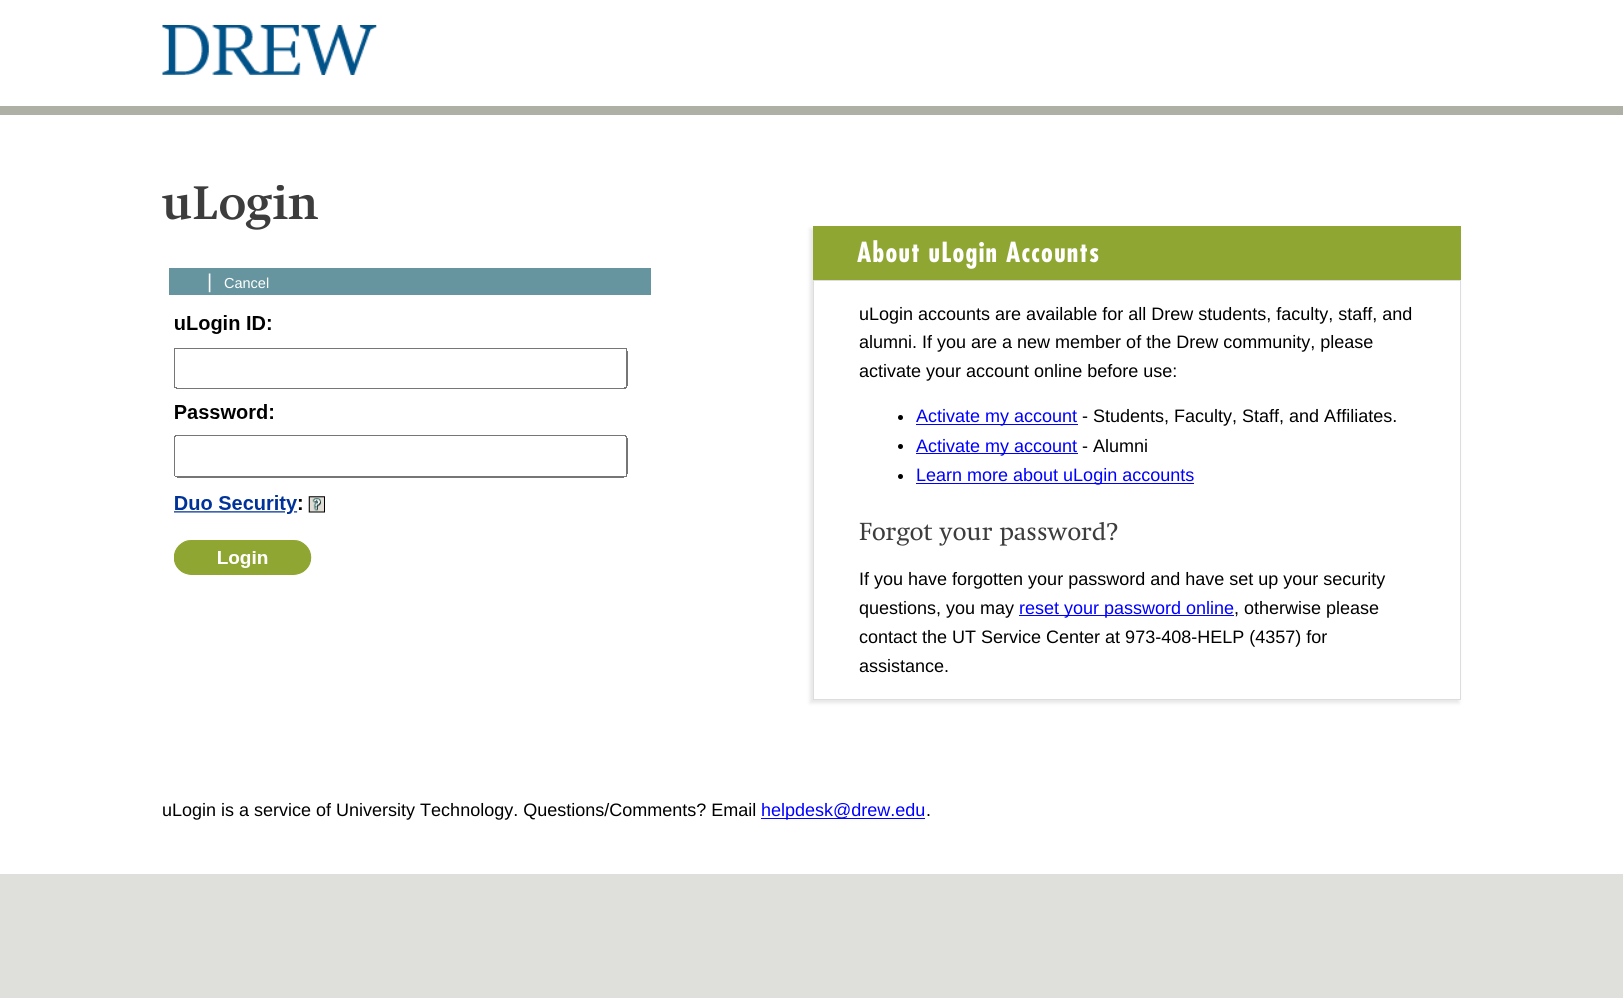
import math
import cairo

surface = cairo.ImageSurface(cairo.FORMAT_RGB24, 1623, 998)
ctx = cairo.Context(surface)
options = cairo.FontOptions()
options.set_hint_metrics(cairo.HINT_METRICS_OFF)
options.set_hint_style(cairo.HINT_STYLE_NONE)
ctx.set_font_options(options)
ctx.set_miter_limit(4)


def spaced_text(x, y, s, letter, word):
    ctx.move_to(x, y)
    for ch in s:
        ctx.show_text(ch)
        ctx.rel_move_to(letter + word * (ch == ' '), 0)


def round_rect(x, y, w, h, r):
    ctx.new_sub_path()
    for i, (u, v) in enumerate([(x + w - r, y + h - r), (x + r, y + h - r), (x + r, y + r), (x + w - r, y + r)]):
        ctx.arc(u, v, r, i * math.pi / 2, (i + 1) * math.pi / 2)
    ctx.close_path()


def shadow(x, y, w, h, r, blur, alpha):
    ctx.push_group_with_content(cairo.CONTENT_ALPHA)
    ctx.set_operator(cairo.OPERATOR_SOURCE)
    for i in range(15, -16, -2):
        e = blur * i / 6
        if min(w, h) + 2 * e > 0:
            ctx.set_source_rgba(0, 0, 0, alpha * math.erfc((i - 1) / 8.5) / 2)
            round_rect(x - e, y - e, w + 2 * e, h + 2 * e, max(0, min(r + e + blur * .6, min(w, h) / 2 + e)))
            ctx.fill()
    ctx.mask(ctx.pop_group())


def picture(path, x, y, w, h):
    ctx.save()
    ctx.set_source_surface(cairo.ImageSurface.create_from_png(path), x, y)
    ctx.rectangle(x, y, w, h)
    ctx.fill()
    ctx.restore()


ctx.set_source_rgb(0.875, 0.878, 0.863)
ctx.paint()
ctx.set_source_rgb(1, 1, 1)
ctx.rectangle(0, 0, 1623, 106)
ctx.fill()
picture("img1.png", 162, 25, 215, 50)
ctx.set_source_rgb(0.686, 0.69, 0.647)
ctx.rectangle(0, 106, 1623, 9)
ctx.fill()
ctx.set_source_rgb(1, 1, 1)
ctx.rectangle(0, 115, 1623, 759)
ctx.fill()
ctx.select_font_face("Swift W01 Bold", cairo.FONT_SLANT_NORMAL, cairo.FONT_WEIGHT_BOLD)
ctx.set_font_size(48)
ctx.set_source_rgb(0.239, 0.239, 0.239)
ctx.move_to(162, 219)
ctx.show_text("uLogin")
ctx.set_source_rgb(0.4, 0.584, 0.624)
ctx.rectangle(169, 268, 482, 27)
ctx.fill()
ctx.select_font_face("Liberation Sans")
ctx.set_font_size(20)
ctx.set_source_rgb(1, 1, 1)
ctx.move_to(207, 288)
ctx.show_text("|")
ctx.set_font_size(14.5)
ctx.move_to(224, 288)
ctx.show_text("Cancel")
picture("img2.png", 174, 315, 454, 260)
ctx.save()
ctx.set_fill_rule(cairo.FILL_RULE_EVEN_ODD)
ctx.new_path()
ctx.move_to(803, 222)
ctx.line_to(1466, 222)
ctx.line_to(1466, 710)
ctx.line_to(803, 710)
ctx.close_path()
ctx.move_to(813, 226)
ctx.line_to(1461, 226)
ctx.line_to(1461, 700)
ctx.line_to(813, 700)
ctx.close_path()
ctx.clip()
ctx.set_source_rgb(0, 0, 0)
shadow(810, 229, 649, 474, 0, 2, 0.1)
ctx.restore()
ctx.set_source_rgb(0.565, 0.651, 0.196)
ctx.rectangle(813, 226, 648, 54)
ctx.fill()
ctx.select_font_face("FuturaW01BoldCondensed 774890", cairo.FONT_SLANT_NORMAL, cairo.FONT_WEIGHT_BOLD)
ctx.set_font_size(27)
ctx.set_source_rgb(1, 1, 1)
spaced_text(857, 262, "About uLogin Accounts", 1.25, 0)
ctx.rectangle(813.5, 280.5, 647, 419)
ctx.set_source_rgb(0.867, 0.867, 0.867)
ctx.set_line_width(1)
ctx.stroke()
ctx.select_font_face("Liberation Sans")
ctx.set_font_size(18)
ctx.set_source_rgb(0, 0, 0)
ctx.move_to(859, 320)
ctx.show_text("uLogin accounts are available for all Drew students, faculty, staff, and")
ctx.move_to(859, 348)
ctx.show_text("alumni. If you are a new member of the Drew community, please")
ctx.move_to(859, 377)
ctx.show_text("activate your account online before use:")
ctx.new_path()
ctx.arc(900.5, 417.5, 2.5, 0, 2 * math.pi)
ctx.fill()
ctx.set_source_rgb(0, 0, 1)
ctx.rectangle(916, 424, 162, 1)
ctx.fill()
ctx.move_to(916, 422)
ctx.show_text("Activate my account")
ctx.set_source_rgb(0, 0, 0)
ctx.move_to(1082, 422)
ctx.show_text("- Students, Faculty, Staff, and Affiliates.")
ctx.new_path()
ctx.arc(900.5, 446.5, 2.5, 0, 2 * math.pi)
ctx.fill()
ctx.set_source_rgb(0, 0, 1)
ctx.rectangle(916, 453, 162, 1)
ctx.fill()
ctx.move_to(916, 452)
ctx.show_text("Activate my account")
ctx.set_source_rgb(0, 0, 0)
ctx.move_to(1082, 452)
ctx.show_text("- Alumni")
ctx.new_path()
ctx.arc(900.5, 476.5, 2.5, 0, 2 * math.pi)
ctx.fill()
ctx.set_source_rgb(0, 0, 1)
ctx.rectangle(916, 483, 278, 1)
ctx.fill()
ctx.move_to(916, 481)
ctx.show_text("Learn more about uLogin accounts")
ctx.select_font_face("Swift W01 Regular")
ctx.set_font_size(25.25)
ctx.set_source_rgb(0.239, 0.239, 0.239)
ctx.move_to(859, 540)
ctx.show_text("Forgot your password?")
ctx.select_font_face("Liberation Sans")
ctx.set_font_size(18)
ctx.set_source_rgb(0, 0, 0)
ctx.move_to(859, 585)
ctx.show_text("If you have forgotten your password and have set up your security")
ctx.move_to(859, 614)
ctx.show_text("questions, you may")
ctx.set_source_rgb(0, 0, 1)
ctx.rectangle(1019, 615, 215, 1)
ctx.fill()
ctx.move_to(1019, 614)
ctx.show_text("reset your password online")
ctx.set_source_rgb(0, 0, 0)
ctx.move_to(1234, 614)
ctx.show_text(", otherwise please")
ctx.move_to(859, 643)
ctx.show_text("contact the UT Service Center at 973-408-HELP (4357) for")
ctx.move_to(859, 672)
ctx.show_text("assistance.")
ctx.move_to(162, 816)
ctx.show_text("uLogin is a service of University Technology. Questions/Comments? Email")
ctx.set_source_rgb(0, 0, 1)
ctx.rectangle(761, 818, 164, 1)
ctx.fill()
ctx.move_to(761, 816)
ctx.show_text("helpdesk@drew.edu")
ctx.set_source_rgb(0, 0, 0)
ctx.move_to(926, 816)
ctx.show_text(".")
surface.write_to_png("page.png")
